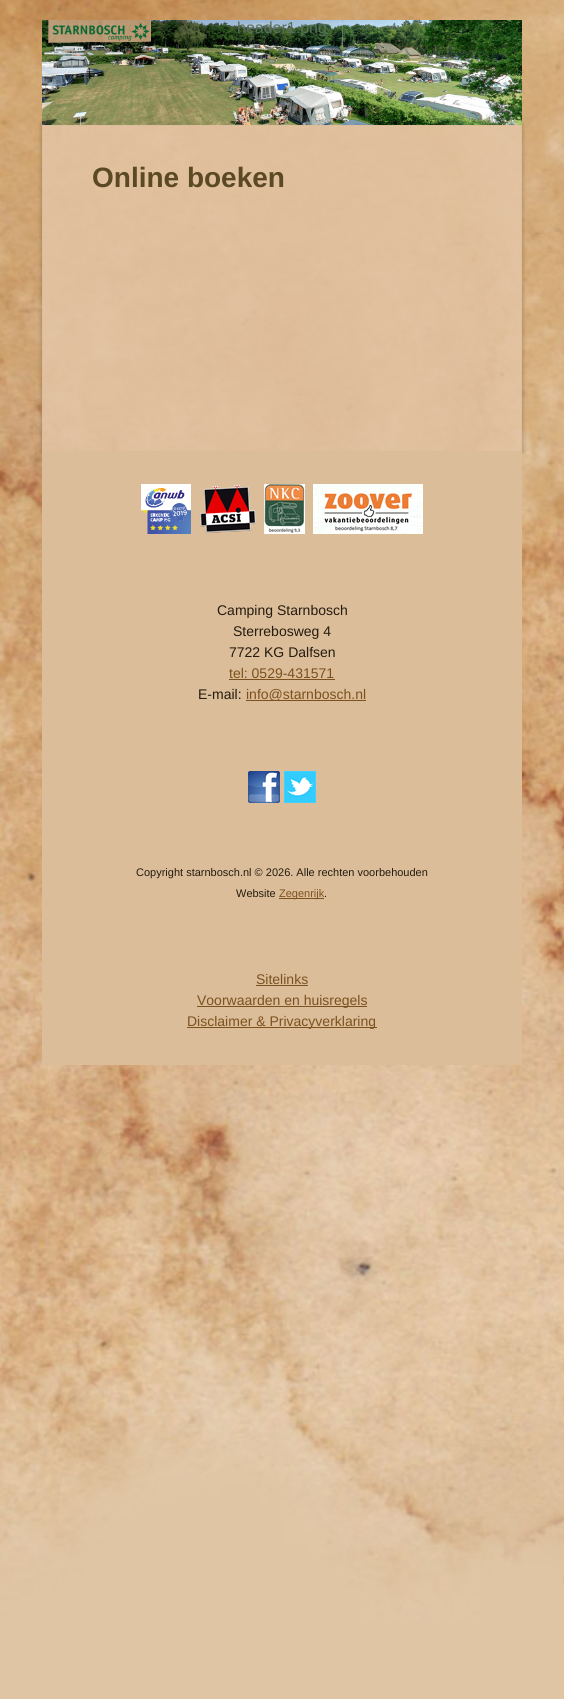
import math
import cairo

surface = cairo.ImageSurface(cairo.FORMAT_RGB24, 564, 1699)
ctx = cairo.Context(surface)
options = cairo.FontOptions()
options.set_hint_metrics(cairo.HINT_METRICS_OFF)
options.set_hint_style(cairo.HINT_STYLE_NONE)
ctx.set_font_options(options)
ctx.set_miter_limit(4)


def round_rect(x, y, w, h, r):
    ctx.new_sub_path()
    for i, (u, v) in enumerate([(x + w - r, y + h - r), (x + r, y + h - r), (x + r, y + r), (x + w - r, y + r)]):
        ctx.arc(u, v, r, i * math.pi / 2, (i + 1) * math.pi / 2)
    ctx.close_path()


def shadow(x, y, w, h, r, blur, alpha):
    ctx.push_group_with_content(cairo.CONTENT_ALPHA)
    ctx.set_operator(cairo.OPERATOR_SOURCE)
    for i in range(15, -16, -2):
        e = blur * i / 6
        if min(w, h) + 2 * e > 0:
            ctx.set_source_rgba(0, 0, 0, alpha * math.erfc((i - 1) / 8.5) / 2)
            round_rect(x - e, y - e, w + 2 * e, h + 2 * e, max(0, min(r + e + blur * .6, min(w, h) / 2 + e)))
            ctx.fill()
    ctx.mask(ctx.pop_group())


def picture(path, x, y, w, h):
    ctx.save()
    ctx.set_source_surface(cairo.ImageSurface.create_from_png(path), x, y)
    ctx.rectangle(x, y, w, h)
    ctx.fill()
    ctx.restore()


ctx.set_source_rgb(0.875, 0.773, 0.643)
ctx.paint()
picture("img1.png", 0, 0, 564, 1620)
ctx.save()
ctx.set_fill_rule(cairo.FILL_RULE_EVEN_ODD)
ctx.new_path()
ctx.move_to(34, 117)
ctx.line_to(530, 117)
ctx.line_to(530, 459)
ctx.line_to(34, 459)
ctx.close_path()
ctx.move_to(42, 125)
ctx.line_to(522, 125)
ctx.line_to(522, 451)
ctx.line_to(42, 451)
ctx.close_path()
ctx.clip()
ctx.set_source_rgb(0, 0, 0)
shadow(40, 123, 484, 330, 0, 1.5, 0.12)
ctx.restore()
picture("img2.png", 42, 20, 480, 105)
ctx.select_font_face("Liberation Sans")
ctx.set_font_size(16)
ctx.set_source_rgb(0.333, 0.435, 0.357)
ctx.move_to(237, 33)
ctx.show_text("header1.png")
ctx.set_source_rgba(0.898, 0.78, 0.663, 0.8)
ctx.rectangle(42, 125, 480, 326)
ctx.fill()
ctx.set_source_rgba(0.859, 0.741, 0.604, 0.8)
ctx.new_path()
ctx.move_to(42, 125)
ctx.line_to(522, 125)
ctx.line_to(521, 126)
ctx.line_to(43, 126)
ctx.close_path()
ctx.fill()
ctx.new_path()
ctx.move_to(522, 125)
ctx.line_to(522, 451)
ctx.line_to(521, 451)
ctx.line_to(521, 126)
ctx.close_path()
ctx.fill()
ctx.new_path()
ctx.move_to(42, 451)
ctx.line_to(42, 125)
ctx.line_to(43, 126)
ctx.line_to(43, 451)
ctx.close_path()
ctx.fill()
ctx.select_font_face("Liberation Sans", cairo.FONT_SLANT_NORMAL, cairo.FONT_WEIGHT_BOLD)
ctx.set_font_size(28)
ctx.set_source_rgb(0.357, 0.282, 0.141)
ctx.move_to(92, 187)
ctx.show_text("Online boeken")
ctx.set_source_rgb(0.859, 0.741, 0.604)
ctx.rectangle(42, 451, 480, 614)
ctx.fill()
picture("img3.png", 141, 484, 50, 50)
picture("img4.png", 199, 484, 57, 49)
picture("img5.png", 264, 484, 41, 50)
picture("img6.png", 313, 484, 110, 50)
ctx.select_font_face("Liberation Sans")
ctx.set_font_size(14)
ctx.set_source_rgb(0.145, 0.106, 0.055)
ctx.move_to(217, 615)
ctx.show_text("Camping Starnbosch")
ctx.move_to(233, 636)
ctx.show_text("Sterrebosweg 4")
ctx.move_to(229, 657)
ctx.show_text("7722 KG Dalfsen")
ctx.set_source_rgb(0.486, 0.318, 0.114)
ctx.move_to(229, 678)
ctx.show_text("tel: 0529-431571")
ctx.rectangle(229, 679, 106, 1)
ctx.fill()
ctx.set_source_rgb(0.145, 0.106, 0.055)
ctx.move_to(198, 699)
ctx.show_text("E-mail:")
ctx.set_source_rgb(0.486, 0.318, 0.114)
ctx.rectangle(246, 700, 120, 1)
ctx.fill()
ctx.move_to(246, 699)
ctx.show_text("info@starnbosch.nl")
picture("img7.png", 248, 771, 32, 32)
picture("img8.png", 284, 771, 32, 32)
ctx.set_font_size(11)
ctx.set_source_rgb(0.145, 0.106, 0.055)
ctx.move_to(136, 876)
ctx.show_text("Copyright starnbosch.nl © 2026. Alle rechten voorbehouden")
ctx.move_to(236, 897)
ctx.show_text("Website")
ctx.set_source_rgb(0.486, 0.318, 0.114)
ctx.rectangle(279, 898, 45, 1)
ctx.fill()
ctx.move_to(279, 897)
ctx.show_text("Zegenrijk")
ctx.set_source_rgb(0.145, 0.106, 0.055)
ctx.move_to(324, 897)
ctx.show_text(".")
ctx.set_font_size(14)
ctx.set_source_rgb(0.486, 0.318, 0.114)
ctx.move_to(256, 984)
ctx.show_text("Sitelinks")
ctx.rectangle(256, 985, 52, 1)
ctx.fill()
ctx.rectangle(197, 1006, 170, 1)
ctx.fill()
ctx.move_to(197, 1005)
ctx.show_text("Voorwaarden en huisregels")
ctx.rectangle(187, 1027, 190, 1)
ctx.fill()
ctx.move_to(187, 1026)
ctx.show_text("Disclaimer & Privacyverklaring")
surface.write_to_png("page.png")
